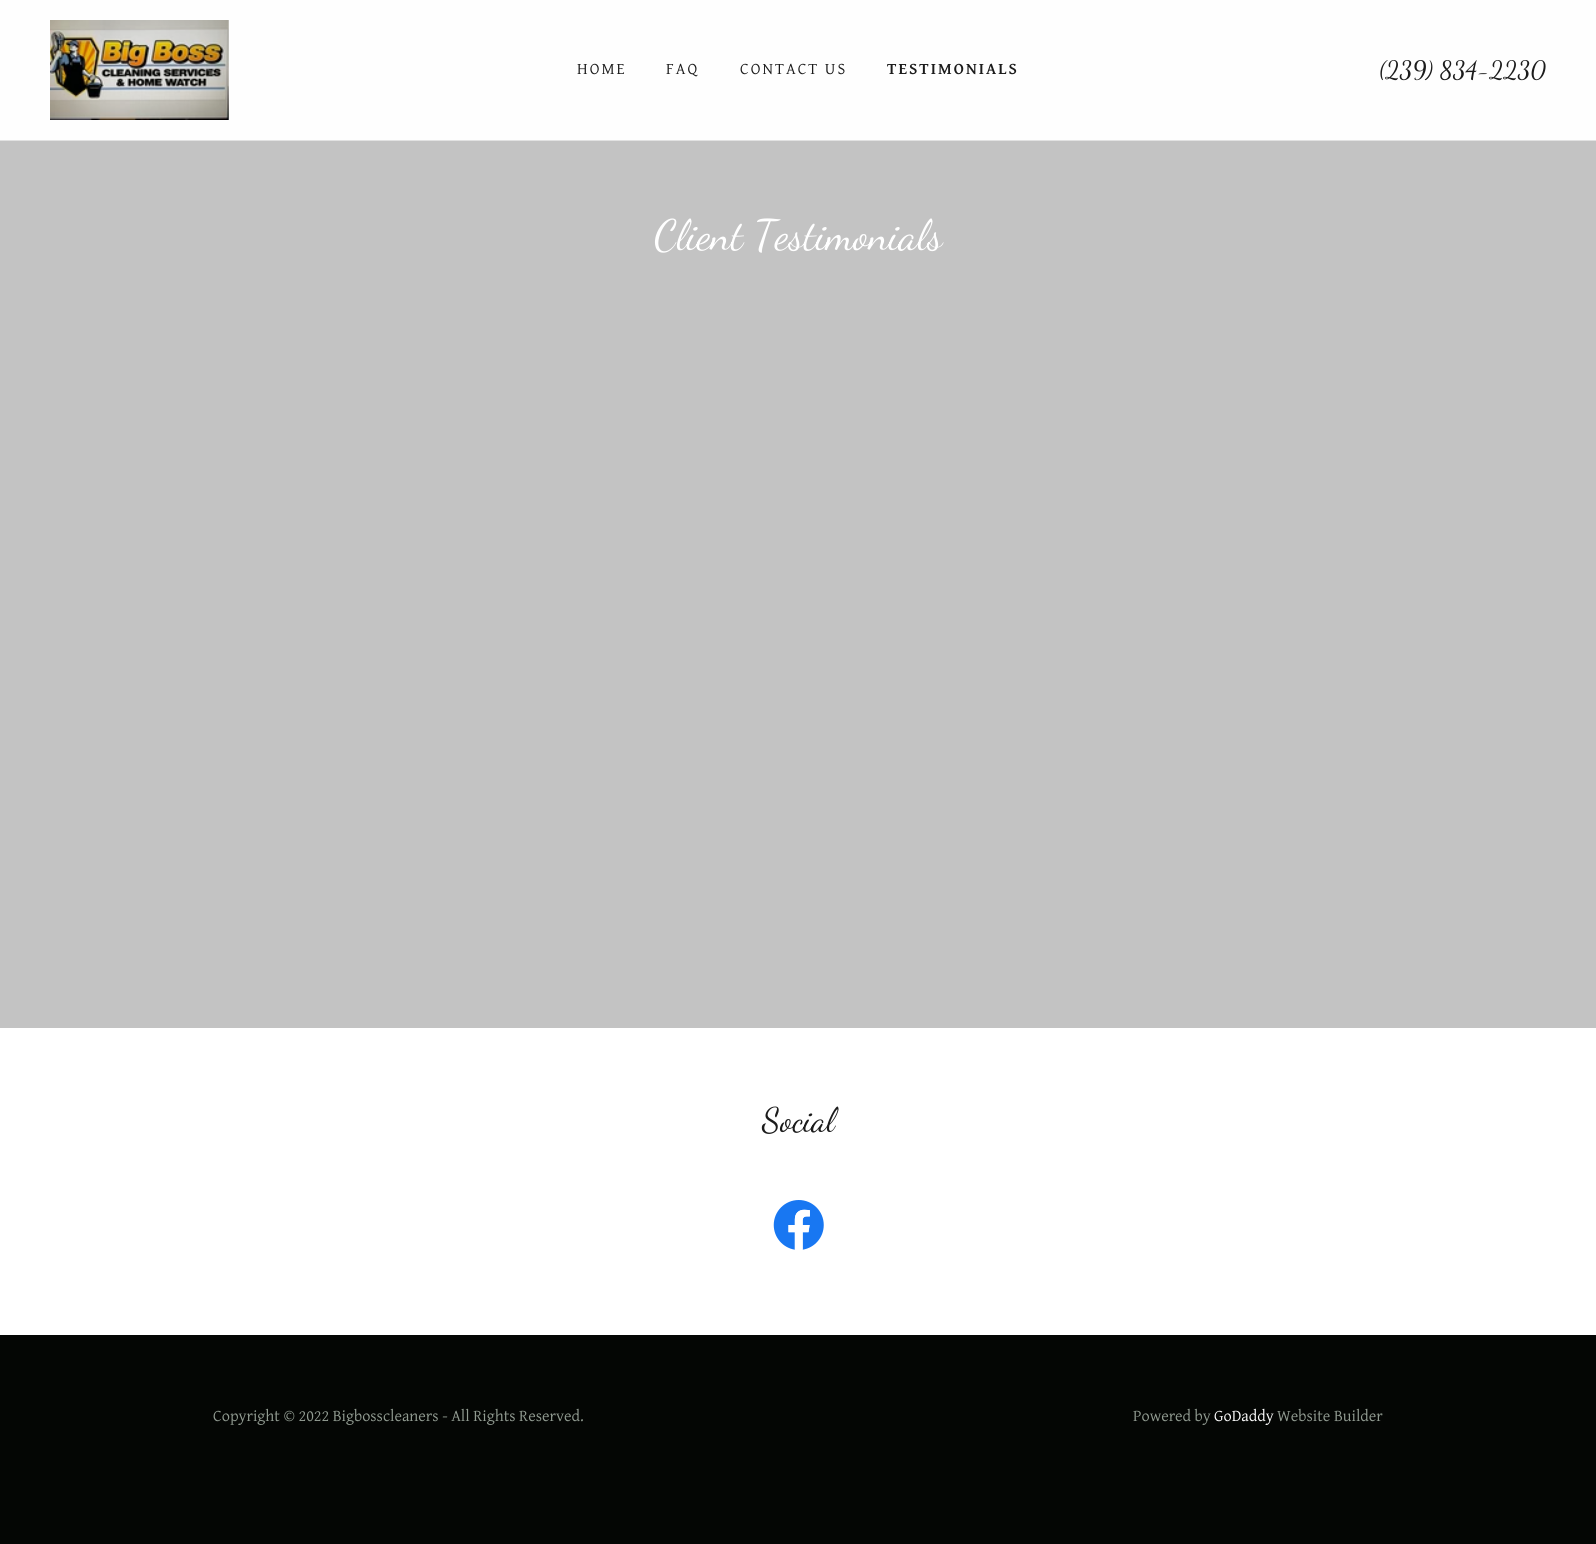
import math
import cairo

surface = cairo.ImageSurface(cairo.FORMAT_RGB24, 1596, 1544)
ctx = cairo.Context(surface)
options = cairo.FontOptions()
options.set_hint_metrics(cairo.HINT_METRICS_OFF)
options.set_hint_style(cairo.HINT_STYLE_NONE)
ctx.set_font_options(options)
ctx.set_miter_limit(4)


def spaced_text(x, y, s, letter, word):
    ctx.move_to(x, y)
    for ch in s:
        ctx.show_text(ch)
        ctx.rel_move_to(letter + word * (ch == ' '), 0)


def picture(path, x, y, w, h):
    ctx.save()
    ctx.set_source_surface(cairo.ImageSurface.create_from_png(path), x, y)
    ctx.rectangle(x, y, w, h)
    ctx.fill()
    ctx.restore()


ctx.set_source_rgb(0.016, 0.024, 0.016)
ctx.paint()
ctx.set_source_rgb(0.996, 0.996, 0.996)
ctx.rectangle(0, 0, 1596, 140)
ctx.fill()
picture("img1.png", 50, 20, 179, 100)
ctx.select_font_face("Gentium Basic")
ctx.set_font_size(16.25)
ctx.set_source_rgb(0.106, 0.106, 0.106)
spaced_text(577, 74, "HOME", 2, 0)
spaced_text(666, 74, "FAQ", 2, 0)
spaced_text(740, 74, "CONTACT US", 2, 0)
ctx.select_font_face("Gentium Basic", cairo.FONT_SLANT_NORMAL, cairo.FONT_WEIGHT_BOLD)
spaced_text(887, 74, "TESTIMONIALS", 2, 0)
ctx.select_font_face("Dancing Script")
ctx.set_font_size(25)
ctx.move_to(1379, 78)
ctx.show_text("(239) 834-2230")
ctx.set_source_rgb(0.886, 0.886, 0.886)
ctx.rectangle(0, 140, 1596, 1)
ctx.fill()
ctx.set_source_rgb(0.765, 0.765, 0.765)
ctx.rectangle(0, 141, 1596, 887)
ctx.fill()
ctx.set_font_size(42.5)
ctx.set_source_rgb(1, 1, 1)
ctx.move_to(654, 249)
ctx.show_text("Client Testimonials")
ctx.rectangle(0, 1028, 1596, 307)
ctx.fill()
ctx.set_font_size(34)
ctx.set_source_rgb(0.106, 0.106, 0.106)
ctx.move_to(762, 1131)
ctx.show_text("Social")
picture("img2.png", 773, 1200, 51, 50)
ctx.select_font_face("Gentium Basic")
ctx.set_font_size(16.25)
ctx.set_source_rgb(0.573, 0.612, 0.573)
ctx.move_to(213, 1421)
ctx.show_text("Copyright © 2022 Bigbosscleaners - All Rights Reserved.")
ctx.move_to(1133, 1421)
ctx.show_text("Powered by")
ctx.set_source_rgb(1, 1, 1)
ctx.move_to(1214, 1421)
ctx.show_text("GoDaddy")
ctx.set_source_rgb(0.573, 0.612, 0.573)
ctx.move_to(1277, 1421)
ctx.show_text("Website Builder")
surface.write_to_png("page.png")
